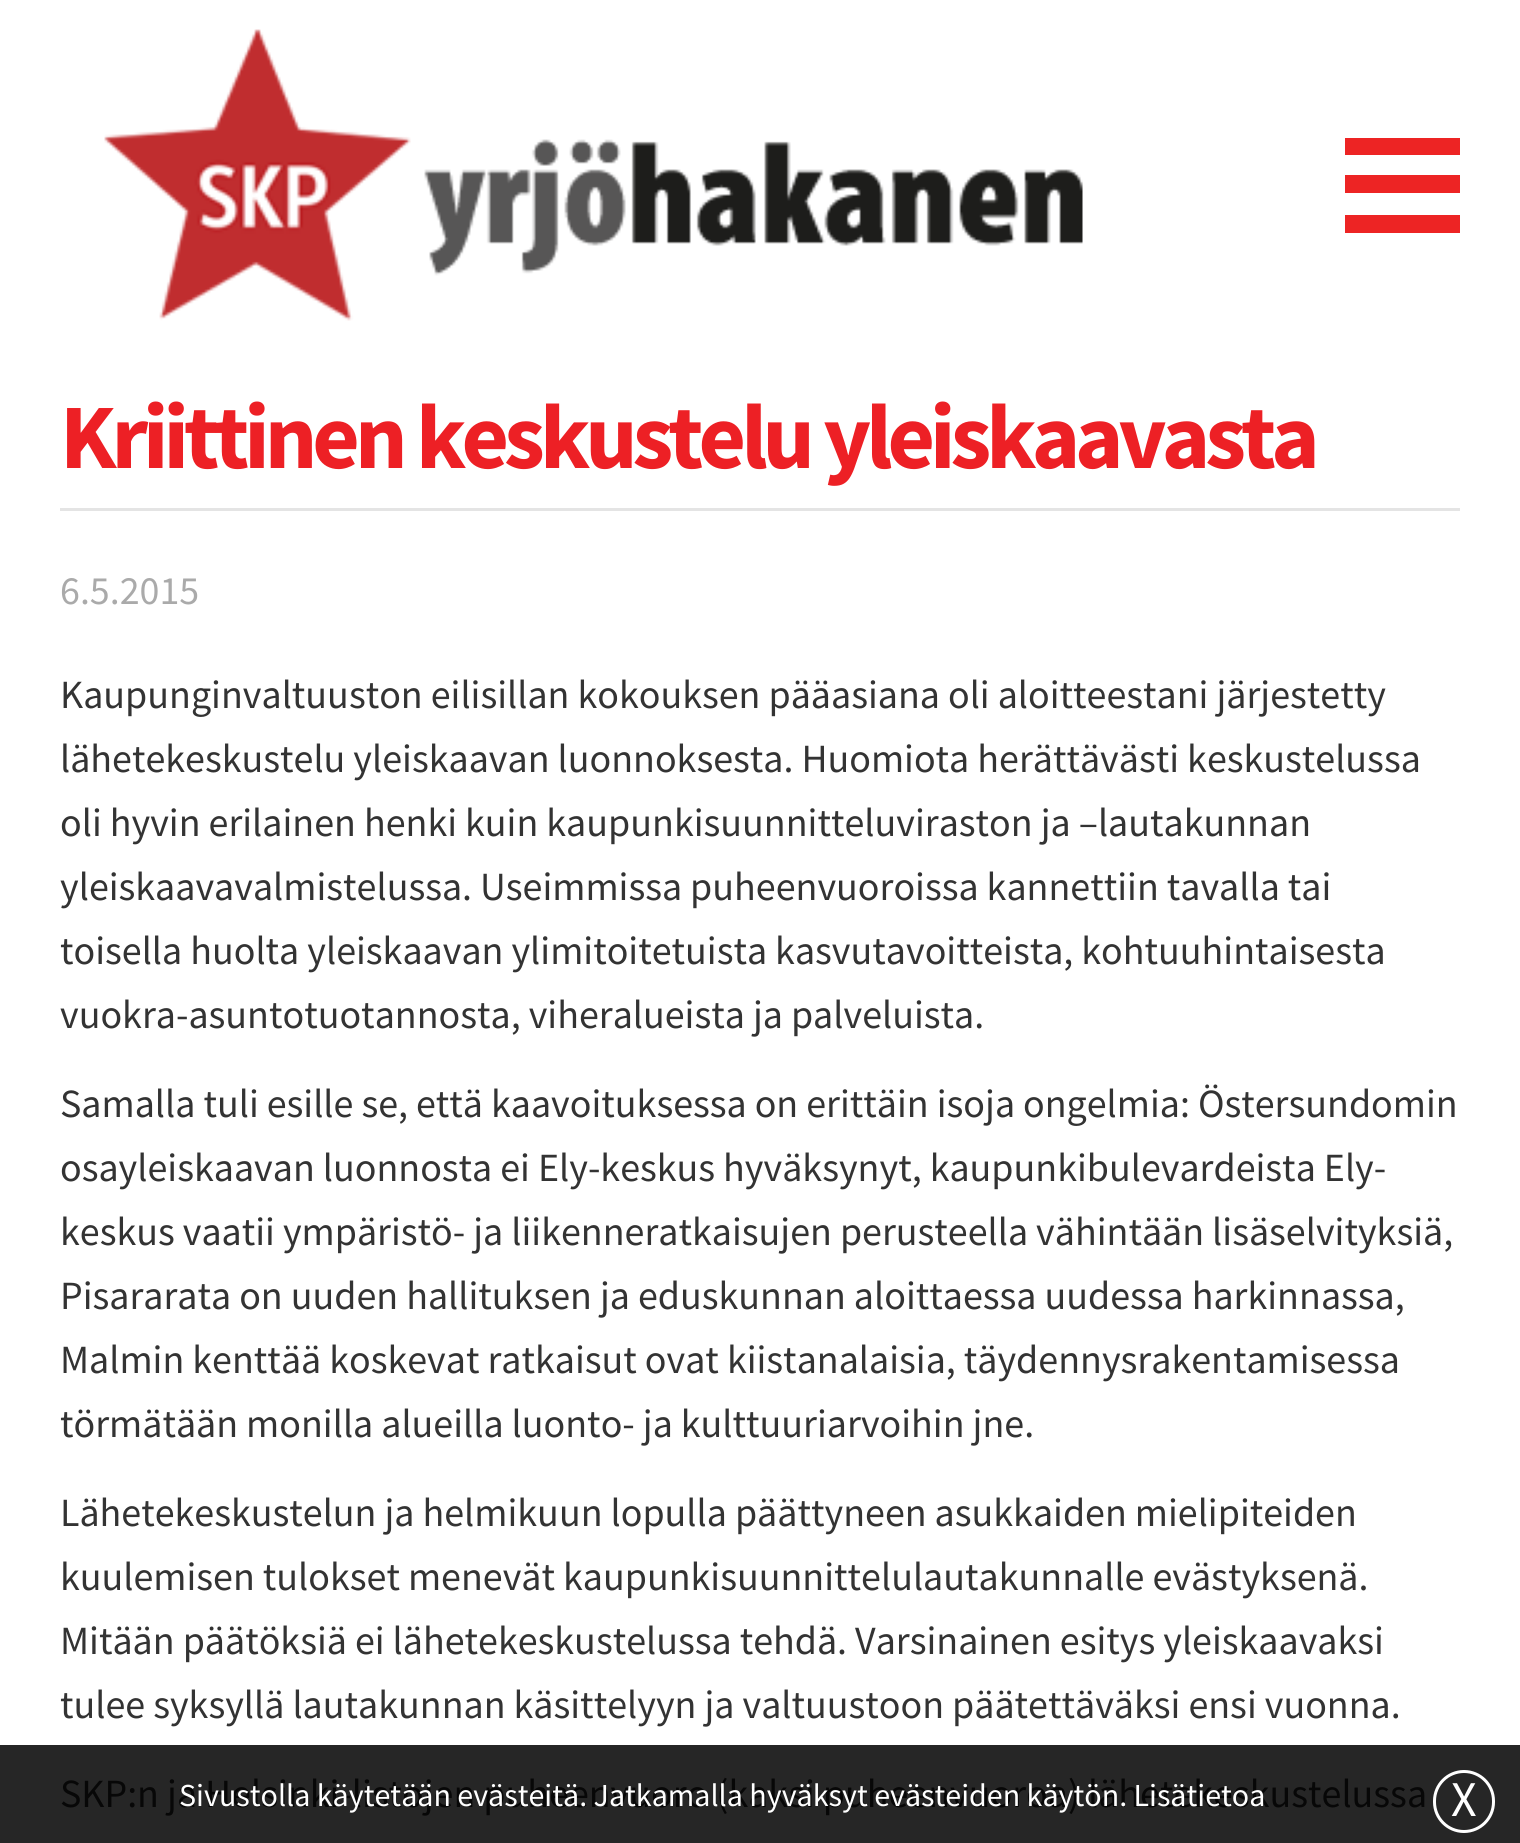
import math
import cairo

surface = cairo.ImageSurface(cairo.FORMAT_RGB24, 1520, 1843)
ctx = cairo.Context(surface)
options = cairo.FontOptions()
options.set_hint_metrics(cairo.HINT_METRICS_OFF)
options.set_hint_style(cairo.HINT_STYLE_NONE)
ctx.set_font_options(options)
ctx.set_miter_limit(4)


def spaced_text(x, y, s, letter, word):
    ctx.move_to(x, y)
    for ch in s:
        ctx.show_text(ch)
        ctx.rel_move_to(letter + word * (ch == ' '), 0)


def round_rect(x, y, w, h, r):
    ctx.new_sub_path()
    for i, (u, v) in enumerate([(x + w - r, y + h - r), (x + r, y + h - r), (x + r, y + r), (x + w - r, y + r)]):
        ctx.arc(u, v, r, i * math.pi / 2, (i + 1) * math.pi / 2)
    ctx.close_path()


def picture(path, x, y, w, h):
    ctx.save()
    ctx.set_source_surface(cairo.ImageSurface.create_from_png(path), x, y)
    ctx.rectangle(x, y, w, h)
    ctx.fill()
    ctx.restore()


ctx.set_source_rgb(1, 1, 1)
ctx.paint()
picture("img1.png", 104, 29, 979, 292)
ctx.set_source_rgb(0.929, 0.141, 0.141)
ctx.rectangle(1345, 138, 115, 17)
ctx.fill()
ctx.rectangle(1345, 215, 115, 18)
ctx.fill()
ctx.rectangle(1345, 175, 115, 18)
ctx.fill()
ctx.set_source_rgb(0.149, 0.149, 0.149)
ctx.rectangle(0, 1745, 1520, 98)
ctx.fill()
ctx.set_source_rgb(0.894, 0.894, 0.894)
ctx.rectangle(60, 508, 1400, 3)
ctx.fill()
ctx.select_font_face("Source Sans Pro", cairo.FONT_SLANT_NORMAL, cairo.FONT_WEIGHT_BOLD)
ctx.set_font_size(92)
ctx.set_source_rgb(0.929, 0.125, 0.145)
spaced_text(60, 468, "Kriittinen keskustelu yleiskaavasta", -5, 0)
ctx.select_font_face("Source Sans Pro")
ctx.set_font_size(40)
ctx.set_source_rgb(0.667, 0.667, 0.667)
ctx.move_to(60, 604)
ctx.show_text("6.5.2015")
ctx.set_source_rgb(0.2, 0.2, 0.2)
ctx.move_to(60, 708)
ctx.show_text("Kaupunginvaltuuston eilisillan kokouksen pääasiana oli aloitteestani järjestetty")
ctx.move_to(60, 772)
ctx.show_text("lähetekeskustelu yleiskaavan luonnoksesta. Huomiota herättävästi keskustelussa")
ctx.move_to(60, 836)
ctx.show_text("oli hyvin erilainen henki kuin kaupunkisuunnitteluviraston ja –lautakunnan")
ctx.move_to(60, 900)
ctx.show_text("yleiskaavavalmistelussa. Useimmissa puheenvuoroissa kannettiin tavalla tai")
ctx.move_to(60, 964)
ctx.show_text("toisella huolta yleiskaavan ylimitoitetuista kasvutavoitteista, kohtuuhintaisesta")
ctx.move_to(60, 1028)
ctx.show_text("vuokra-asuntotuotannosta, viheralueista ja palveluista.")
ctx.move_to(60, 1117)
ctx.show_text("Samalla tuli esille se, että kaavoituksessa on erittäin isoja ongelmia: Östersundomin")
ctx.move_to(60, 1181)
ctx.show_text("osayleiskaavan luonnosta ei Ely-keskus hyväksynyt, kaupunkibulevardeista Ely-")
ctx.move_to(60, 1245)
ctx.show_text("keskus vaatii ympäristö- ja liikenneratkaisujen perusteella vähintään lisäselvityksiä,")
ctx.move_to(60, 1309)
ctx.show_text("Pisararata on uuden hallituksen ja eduskunnan aloittaessa uudessa harkinnassa,")
ctx.move_to(60, 1373)
ctx.show_text("Malmin kenttää koskevat ratkaisut ovat kiistanalaisia, täydennysrakentamisessa")
ctx.move_to(60, 1437)
ctx.show_text("törmätään monilla alueilla luonto- ja kulttuuriarvoihin jne.")
ctx.move_to(60, 1526)
ctx.show_text("Lähetekeskustelun ja helmikuun lopulla päättyneen asukkaiden mielipiteiden")
ctx.move_to(60, 1590)
ctx.show_text("kuulemisen tulokset menevät kaupunkisuunnittelulautakunnalle evästyksenä.")
ctx.move_to(60, 1654)
ctx.show_text("Mitään päätöksiä ei lähetekeskustelussa tehdä. Varsinainen esitys yleiskaavaksi")
ctx.move_to(60, 1718)
ctx.show_text("tulee syksyllä lautakunnan käsittelyyn ja valtuustoon päätettäväksi ensi vuonna.")
ctx.set_source_rgb(0.031, 0.031, 0.031)
ctx.move_to(60, 1807)
ctx.show_text("SKP:n ja Helsinki-listojen puheenvuoro (kaksi puheenvuoroa) lähetekeskustelussa")
ctx.set_font_size(32)
ctx.set_source_rgb(1, 1, 1)
ctx.move_to(179, 1806)
ctx.show_text("Sivustolla käytetään evästeitä. Jatkamalla hyväksyt evästeiden käytön. Lisätietoa")
round_rect(1434.5, 1771.5, 59, 60, 29.5)
ctx.set_line_width(3)
ctx.stroke()
ctx.set_font_size(50)
ctx.move_to(1451, 1816)
ctx.show_text("X")
surface.write_to_png("page.png")
